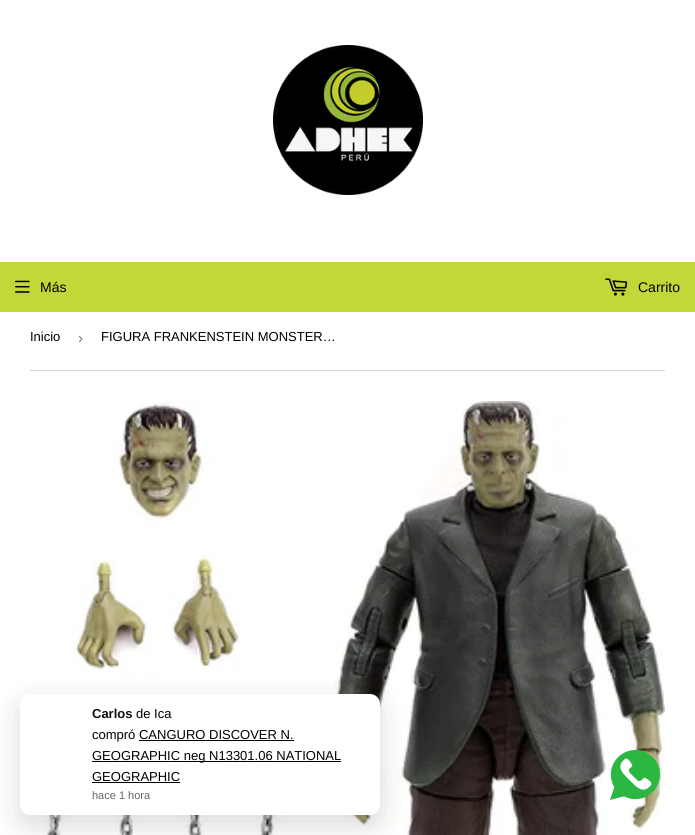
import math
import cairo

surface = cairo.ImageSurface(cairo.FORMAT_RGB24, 695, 835)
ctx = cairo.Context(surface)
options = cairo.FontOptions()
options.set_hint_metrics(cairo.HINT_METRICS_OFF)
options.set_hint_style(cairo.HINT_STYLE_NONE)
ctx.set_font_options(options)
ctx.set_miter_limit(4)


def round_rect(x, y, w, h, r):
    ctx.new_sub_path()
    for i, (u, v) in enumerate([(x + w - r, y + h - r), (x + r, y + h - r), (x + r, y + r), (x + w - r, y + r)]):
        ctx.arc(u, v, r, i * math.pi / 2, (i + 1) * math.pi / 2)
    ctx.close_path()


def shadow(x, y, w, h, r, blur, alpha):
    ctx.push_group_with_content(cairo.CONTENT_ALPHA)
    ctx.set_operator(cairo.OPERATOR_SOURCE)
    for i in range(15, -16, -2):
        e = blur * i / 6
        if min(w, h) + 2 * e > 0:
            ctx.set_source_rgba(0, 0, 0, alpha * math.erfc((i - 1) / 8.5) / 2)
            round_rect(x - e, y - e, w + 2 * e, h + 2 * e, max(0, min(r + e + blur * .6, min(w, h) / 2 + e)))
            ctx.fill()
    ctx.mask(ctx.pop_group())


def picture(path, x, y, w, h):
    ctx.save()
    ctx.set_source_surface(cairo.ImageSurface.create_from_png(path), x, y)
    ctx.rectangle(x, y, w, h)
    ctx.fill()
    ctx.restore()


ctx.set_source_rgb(1, 1, 1)
ctx.paint()
picture("img1.png", 273, 45, 150, 150)
ctx.set_source_rgb(0.761, 0.847, 0.22)
ctx.rectangle(0, 262, 695, 50)
ctx.fill()
picture("img2.png", 15, 280, 15, 13)
ctx.select_font_face("Arimo")
ctx.set_font_size(14)
ctx.set_source_rgb(0, 0, 0)
ctx.move_to(40, 292)
ctx.show_text("Más")
picture("img3.png", 605, 278, 23, 18)
ctx.move_to(638, 292)
ctx.show_text("Carrito")
ctx.set_source_rgb(0.839, 0.839, 0.831)
ctx.rectangle(30, 370, 635, 1)
ctx.fill()
ctx.set_font_size(13)
ctx.set_source_rgb(0, 0, 0)
ctx.move_to(30, 341)
ctx.show_text("Inicio")
ctx.select_font_face("Liberation Sans")
ctx.set_font_size(15)
ctx.set_source_rgb(0.463, 0.463, 0.463)
ctx.move_to(78, 343)
ctx.show_text("›")
ctx.select_font_face("Arimo")
ctx.set_font_size(13)
ctx.set_source_rgb(0, 0, 0)
ctx.move_to(101, 341)
ctx.show_text("FIGURA FRANKENSTEIN MONSTER…")
picture("img4.png", 41, 401, 624, 434)
ctx.set_source_rgb(0, 0, 0)
shadow(20, 704, 360, 121, 10, 15, 0.15)
ctx.set_source_rgb(1, 1, 1)
round_rect(20, 694, 360, 121, 10)
ctx.fill()
ctx.select_font_face("Arimo", cairo.FONT_SLANT_NORMAL, cairo.FONT_WEIGHT_BOLD)
ctx.set_source_rgb(0.067, 0.067, 0.067)
ctx.move_to(92, 718)
ctx.show_text("Carlos")
ctx.select_font_face("Arimo")
ctx.set_source_rgb(0, 0, 0)
ctx.move_to(136, 718)
ctx.show_text("de Ica")
ctx.move_to(92, 739)
ctx.show_text("compró CANGURO DISCOVER N.")
ctx.rectangle(92, 761, 249, 1)
ctx.fill()
ctx.move_to(92, 760)
ctx.show_text("GEOGRAPHIC neg N13301.06 NATIONAL")
ctx.rectangle(139, 740, 155, 1)
ctx.fill()
ctx.move_to(92, 781)
ctx.show_text("GEOGRAPHIC")
ctx.rectangle(92, 782, 88, 1)
ctx.fill()
ctx.set_font_size(11)
ctx.set_source_rgb(0.4, 0.4, 0.4)
ctx.move_to(92, 799)
ctx.show_text("hace 1 hora")
picture("img5.png", 610, 750, 50, 50)
surface.write_to_png("page.png")
